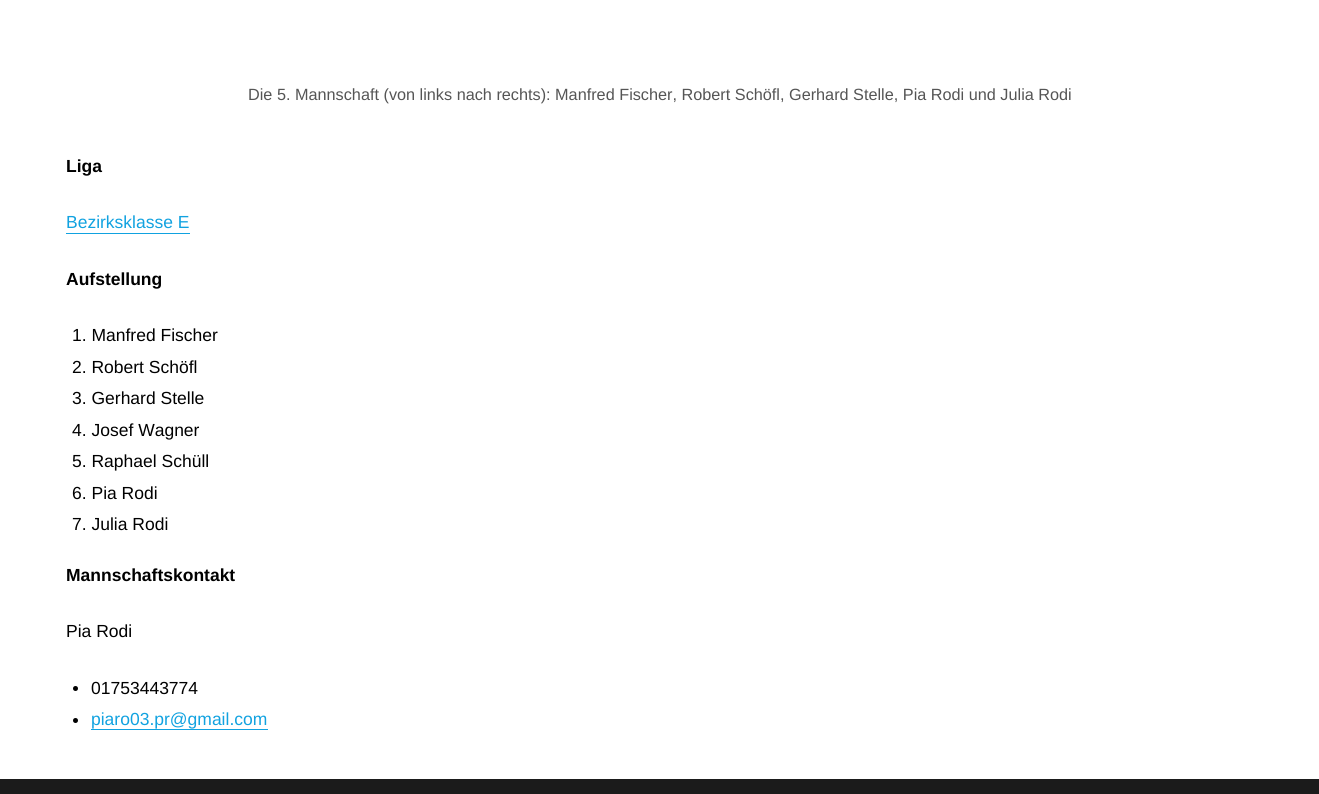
import math
import cairo

surface = cairo.ImageSurface(cairo.FORMAT_RGB24, 1319, 794)
ctx = cairo.Context(surface)
options = cairo.FontOptions()
options.set_hint_metrics(cairo.HINT_METRICS_OFF)
options.set_hint_style(cairo.HINT_STYLE_NONE)
ctx.set_font_options(options)
ctx.set_miter_limit(4)


ctx.set_source_rgb(1, 1, 1)
ctx.paint()
ctx.select_font_face("Liberation Sans")
ctx.set_font_size(16.25)
ctx.set_source_rgb(0.333, 0.333, 0.333)
ctx.move_to(248, 100)
ctx.show_text("Die 5. Mannschaft (von links nach rechts): Manfred Fischer, Robert Schöfl, Gerhard Stelle, Pia Rodi und Julia Rodi")
ctx.select_font_face("Liberation Sans", cairo.FONT_SLANT_NORMAL, cairo.FONT_WEIGHT_BOLD)
ctx.set_font_size(17.5)
ctx.set_source_rgb(0, 0, 0)
ctx.move_to(66, 172)
ctx.show_text("Liga")
ctx.select_font_face("Liberation Sans")
ctx.set_source_rgb(0.067, 0.635, 0.878)
ctx.move_to(66, 228)
ctx.show_text("Bezirksklasse E")
ctx.rectangle(66, 233, 124, 1)
ctx.fill()
ctx.select_font_face("Liberation Sans", cairo.FONT_SLANT_NORMAL, cairo.FONT_WEIGHT_BOLD)
ctx.set_source_rgb(0, 0, 0)
ctx.move_to(66, 285)
ctx.show_text("Aufstellung")
ctx.select_font_face("Liberation Sans")
ctx.move_to(72, 341)
ctx.show_text("1. Manfred Fischer")
ctx.move_to(72, 373)
ctx.show_text("2. Robert Schöfl")
ctx.move_to(72, 404)
ctx.show_text("3. Gerhard Stelle")
ctx.move_to(72, 436)
ctx.show_text("4. Josef Wagner")
ctx.move_to(72, 467)
ctx.show_text("5. Raphael Schüll")
ctx.move_to(72, 499)
ctx.show_text("6. Pia Rodi")
ctx.move_to(72, 530)
ctx.show_text("7. Julia Rodi")
ctx.select_font_face("Liberation Sans", cairo.FONT_SLANT_NORMAL, cairo.FONT_WEIGHT_BOLD)
ctx.move_to(66, 581)
ctx.show_text("Mannschaftskontakt")
ctx.select_font_face("Liberation Sans")
ctx.move_to(66, 637)
ctx.show_text("Pia Rodi")
ctx.new_path()
ctx.arc(75.5, 688.5, 2.5, 0, 2 * math.pi)
ctx.fill()
ctx.move_to(91, 694)
ctx.show_text("01753443774")
ctx.new_path()
ctx.arc(75.5, 720.5, 2.5, 0, 2 * math.pi)
ctx.fill()
ctx.set_source_rgb(0.067, 0.635, 0.878)
ctx.move_to(91, 725)
ctx.show_text("piaro03.pr@gmail.com")
ctx.rectangle(91, 729, 177, 1)
ctx.fill()
ctx.set_source_rgb(0.106, 0.106, 0.106)
ctx.rectangle(0, 779, 1319, 15)
ctx.fill()
surface.write_to_png("page.png")
